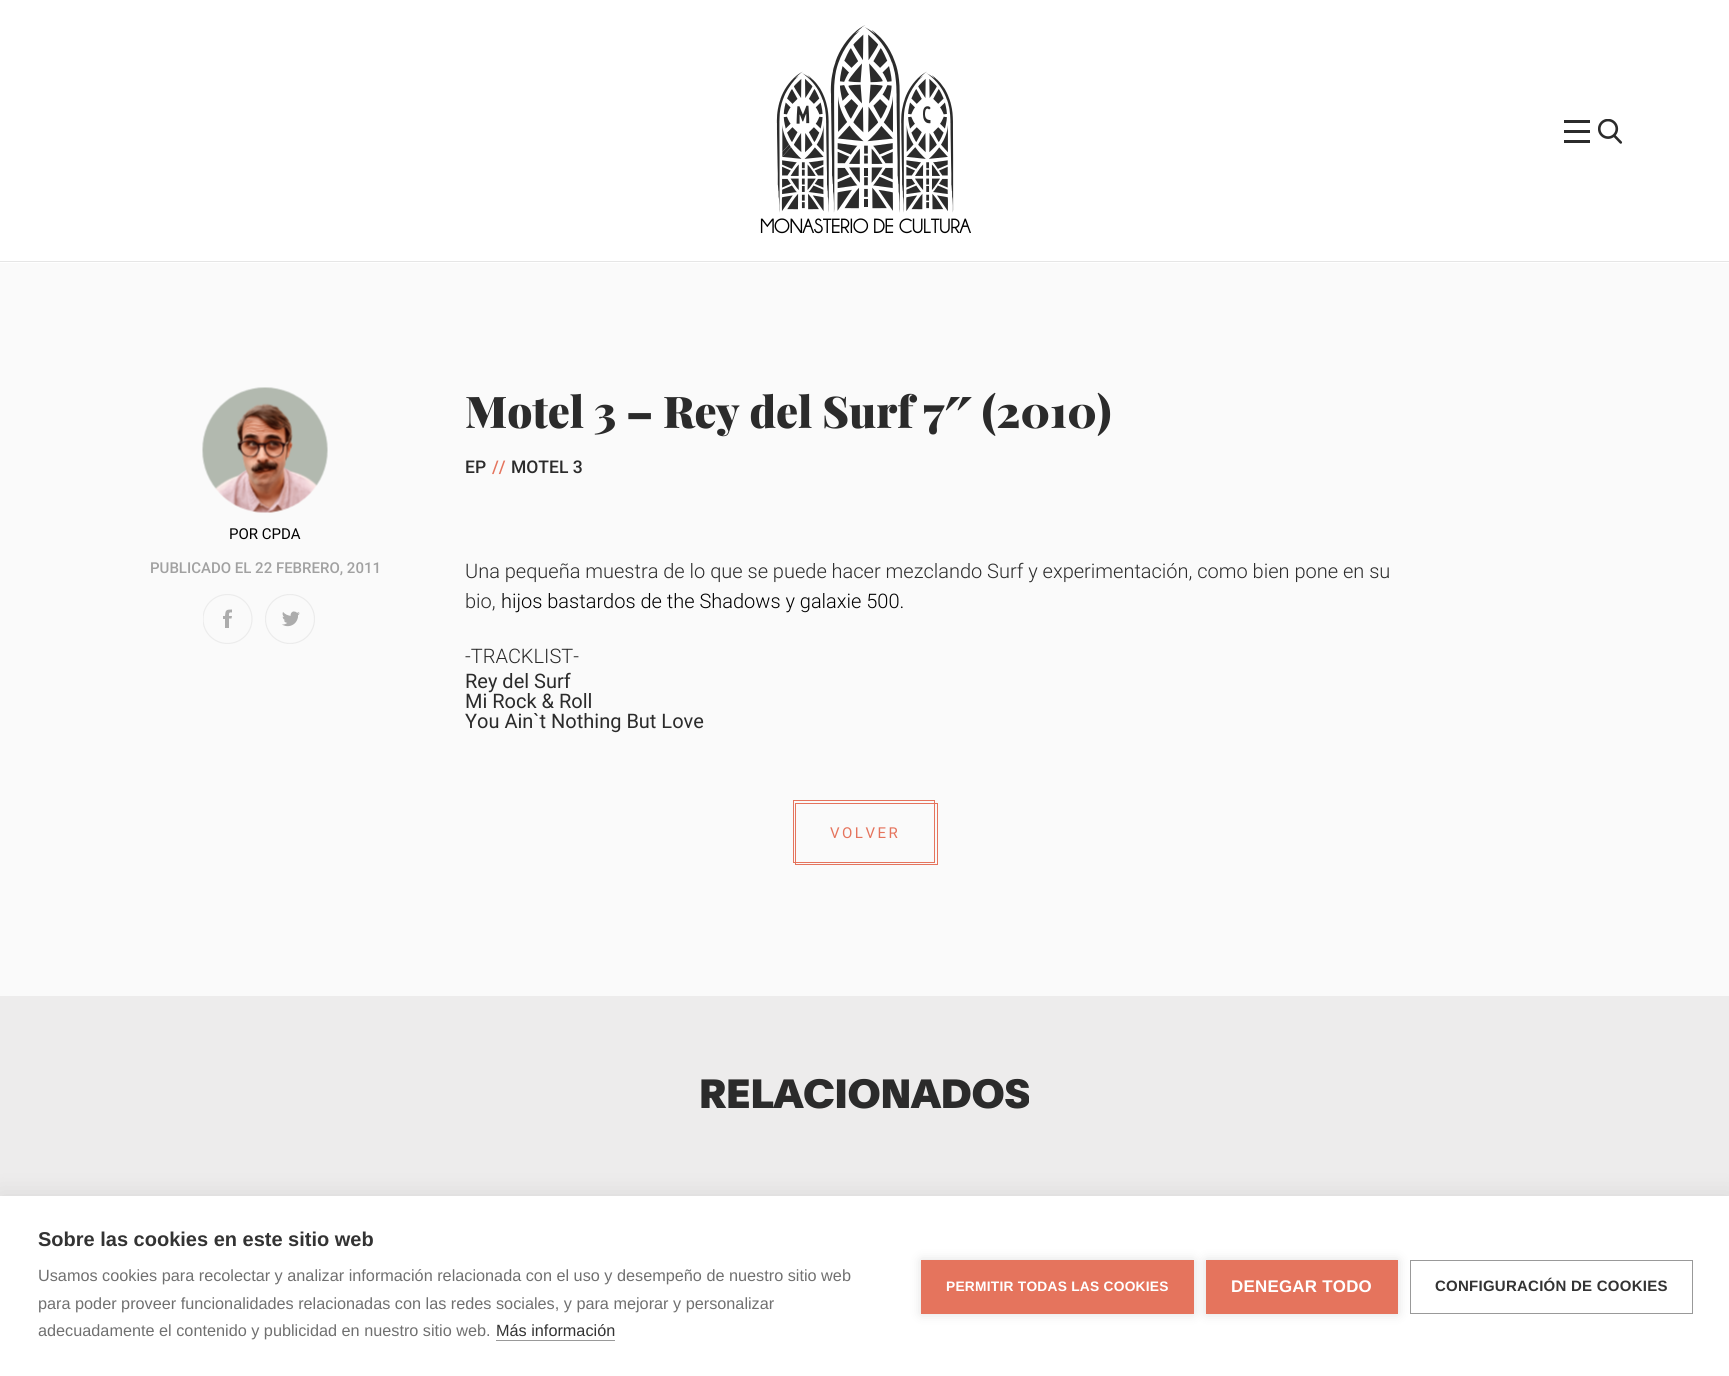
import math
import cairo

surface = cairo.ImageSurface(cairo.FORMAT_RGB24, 1729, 1376)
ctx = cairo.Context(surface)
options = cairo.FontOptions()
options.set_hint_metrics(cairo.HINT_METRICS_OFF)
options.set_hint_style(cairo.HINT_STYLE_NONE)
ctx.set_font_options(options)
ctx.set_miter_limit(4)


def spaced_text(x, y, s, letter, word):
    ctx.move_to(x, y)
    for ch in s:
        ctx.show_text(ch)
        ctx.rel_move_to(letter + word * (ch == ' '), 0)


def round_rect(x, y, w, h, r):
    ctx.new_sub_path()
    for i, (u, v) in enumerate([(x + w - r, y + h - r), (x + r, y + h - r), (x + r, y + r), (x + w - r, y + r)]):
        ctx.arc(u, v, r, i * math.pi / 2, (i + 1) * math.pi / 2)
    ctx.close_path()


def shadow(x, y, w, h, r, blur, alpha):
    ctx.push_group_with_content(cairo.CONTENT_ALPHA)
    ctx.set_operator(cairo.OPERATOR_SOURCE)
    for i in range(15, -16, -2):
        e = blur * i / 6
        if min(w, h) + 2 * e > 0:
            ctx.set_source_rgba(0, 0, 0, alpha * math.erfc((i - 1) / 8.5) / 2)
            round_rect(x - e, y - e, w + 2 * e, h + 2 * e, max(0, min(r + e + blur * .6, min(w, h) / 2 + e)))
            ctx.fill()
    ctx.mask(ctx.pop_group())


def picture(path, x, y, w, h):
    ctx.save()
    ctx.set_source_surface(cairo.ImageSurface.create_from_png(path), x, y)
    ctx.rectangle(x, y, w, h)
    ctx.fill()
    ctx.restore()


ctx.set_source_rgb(1, 1, 1)
ctx.paint()
ctx.set_source_rgb(0.902, 0.902, 0.902)
ctx.rectangle(0, 261, 1729, 1)
ctx.fill()
picture("img1.png", 776, 25, 178, 188)
ctx.set_source_rgb(0.169, 0.169, 0.169)
ctx.rectangle(1564, 130, 26, 3)
ctx.fill()
ctx.rectangle(1564, 120, 26, 3)
ctx.fill()
ctx.rectangle(1564, 140, 26, 3)
ctx.fill()
picture("img2.png", 1598, 119, 25, 25)
ctx.select_font_face("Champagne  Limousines", cairo.FONT_SLANT_NORMAL, cairo.FONT_WEIGHT_BOLD)
ctx.set_font_size(20)
ctx.set_source_rgb(0, 0, 0)
ctx.move_to(760, 233)
ctx.show_text("MONASTERIO DE CULTURA")
ctx.set_source_rgb(0.98, 0.98, 0.98)
ctx.rectangle(0, 263, 1729, 733)
ctx.fill()
picture("img3.png", 202, 387, 126, 126)
ctx.select_font_face("Roboto")
ctx.set_font_size(15)
ctx.set_source_rgb(0, 0, 0)
ctx.move_to(229, 539)
ctx.show_text("POR CPDA")
ctx.select_font_face("Roboto Medium")
ctx.set_source_rgb(0.631, 0.631, 0.631)
ctx.move_to(150, 573)
ctx.show_text("PUBLICADO EL 22 FEBRERO, 2011")
ctx.save()
ctx.rectangle(203, 594, 50, 50)
ctx.clip()
ctx.arc(227.5, 619, 24.5, 0, 2 * math.pi)
ctx.set_source_rgb(0.925, 0.925, 0.925)
ctx.set_line_width(1.2)
ctx.stroke()
ctx.restore()
ctx.set_source_rgb(0.675, 0.675, 0.675)
ctx.set_fill_rule(cairo.FILL_RULE_EVEN_ODD)
ctx.new_path()
ctx.move_to(232, 609.5)
ctx.line_to(232, 612.5)
ctx.curve_to(228.5, 612, 229, 613.5, 229, 616)
ctx.line_to(232, 616)
ctx.line_to(231.5, 618.5)
ctx.line_to(229, 618.5)
ctx.line_to(229, 628)
ctx.line_to(225, 628)
ctx.line_to(225, 619)
ctx.line_to(223, 619)
ctx.line_to(223, 616)
ctx.line_to(225, 616)
ctx.curve_to(225.5, 610, 226, 609.5, 232, 609.5)
ctx.close_path()
ctx.fill()
picture("img4.png", 265, 594, 50, 50)
ctx.select_font_face("Playfair Display Black")
ctx.set_font_size(43.75)
ctx.set_source_rgb(0.169, 0.169, 0.169)
ctx.move_to(465, 428)
ctx.show_text("Motel 3 – Rey del Surf 7″ (2010)")
ctx.select_font_face("Roboto Medium")
ctx.set_font_size(17.5)
ctx.move_to(465, 473)
ctx.show_text("EP")
ctx.set_source_rgb(0.898, 0.455, 0.365)
ctx.move_to(492, 473)
ctx.show_text("//")
ctx.set_source_rgb(0.169, 0.169, 0.169)
ctx.move_to(511, 473)
ctx.show_text("MOTEL 3")
ctx.select_font_face("Roboto Light")
ctx.set_font_size(20)
ctx.move_to(465, 578)
ctx.show_text("Una pequeña muestra de lo que se puede hacer mezclando Surf y experimentación, como bien pone en su")
ctx.move_to(465, 608)
ctx.show_text("bio,")
ctx.set_source_rgb(0, 0, 0)
ctx.move_to(501, 608)
ctx.show_text("hijos bastardos de the Shadows y galaxie 500.")
ctx.set_source_rgb(0.169, 0.169, 0.169)
ctx.move_to(465, 663)
ctx.show_text("-TRACKLIST-")
ctx.select_font_face("Roboto")
ctx.move_to(465, 688)
ctx.show_text("Rey del Surf")
ctx.move_to(465, 708)
ctx.show_text("Mi Rock & Roll")
ctx.move_to(465, 728)
ctx.show_text("You Ain`t Nothing But Love")
ctx.rectangle(795.5, 803.5, 142, 61)
ctx.set_source_rgb(0.898, 0.455, 0.365)
ctx.set_line_width(1)
ctx.stroke()
ctx.rectangle(793.5, 800.5, 141, 62)
ctx.stroke()
ctx.set_font_size(15)
spaced_text(830, 838, "VOLVER", 2.5, 0)
ctx.set_source_rgb(0.929, 0.925, 0.925)
ctx.rectangle(0, 996, 1729, 200)
ctx.fill()
ctx.select_font_face("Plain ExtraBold")
ctx.set_font_size(40)
ctx.set_source_rgb(0.169, 0.169, 0.169)
ctx.move_to(699, 1108)
ctx.show_text("RELACIONADOS")
ctx.set_source_rgb(0, 0, 0)
shadow(0, 1196, 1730, 180, 0, 12.5, 0.1)
ctx.set_source_rgb(1, 1, 1)
ctx.rectangle(0, 1196, 1729, 180)
ctx.fill()
ctx.select_font_face("Liberation Sans", cairo.FONT_SLANT_NORMAL, cairo.FONT_WEIGHT_BOLD)
ctx.set_font_size(20)
ctx.set_source_rgb(0.2, 0.2, 0.2)
ctx.move_to(38, 1246)
ctx.show_text("Sobre las cookies en este sitio web")
ctx.select_font_face("Liberation Sans")
ctx.set_font_size(16.25)
ctx.set_source_rgb(0.439, 0.439, 0.439)
ctx.move_to(38, 1281)
ctx.show_text("Usamos cookies para recolectar y analizar información relacionada con el uso y desempeño de nuestro sitio web")
ctx.move_to(38, 1309)
ctx.show_text("para poder proveer funcionalidades relacionadas con las redes sociales, y para mejorar y personalizar")
ctx.move_to(38, 1336)
ctx.show_text("adecuadamente el contenido y publicidad en nuestro sitio web.")
ctx.set_source_rgb(0.2, 0.2, 0.2)
ctx.move_to(496, 1336)
ctx.show_text("Más información")
ctx.set_source_rgb(0.6, 0.6, 0.6)
ctx.rectangle(496, 1340, 119, 1)
ctx.fill()
ctx.set_source_rgb(0, 0, 0)
shadow(921, 1260, 273, 54, 0, 6, 0.12)
ctx.set_source_rgb(0.898, 0.455, 0.365)
ctx.rectangle(921, 1260, 273, 54)
ctx.fill()
ctx.select_font_face("Liberation Sans", cairo.FONT_SLANT_NORMAL, cairo.FONT_WEIGHT_BOLD)
ctx.set_font_size(13.75)
ctx.set_source_rgb(1, 1, 1)
spaced_text(946, 1291, "PERMITIR TODAS LAS COOKIES", 0.25, 0)
ctx.set_source_rgb(0, 0, 0)
shadow(1206, 1260, 192, 54, 0, 6, 0.12)
ctx.set_source_rgb(0.898, 0.455, 0.365)
ctx.rectangle(1206, 1260, 192, 54)
ctx.fill()
ctx.set_font_size(16.9)
ctx.set_source_rgb(1, 1, 1)
spaced_text(1231, 1292, "DENEGAR TODO", 0.25, 0)
ctx.rectangle(1410.5, 1260.5, 282, 53)
ctx.set_source_rgb(0.6, 0.6, 0.6)
ctx.stroke()
ctx.set_font_size(15)
ctx.set_source_rgb(0.2, 0.2, 0.2)
spaced_text(1435, 1291, "CONFIGURACIÓN DE COOKIES", 0.25, 0)
surface.write_to_png("page.png")
